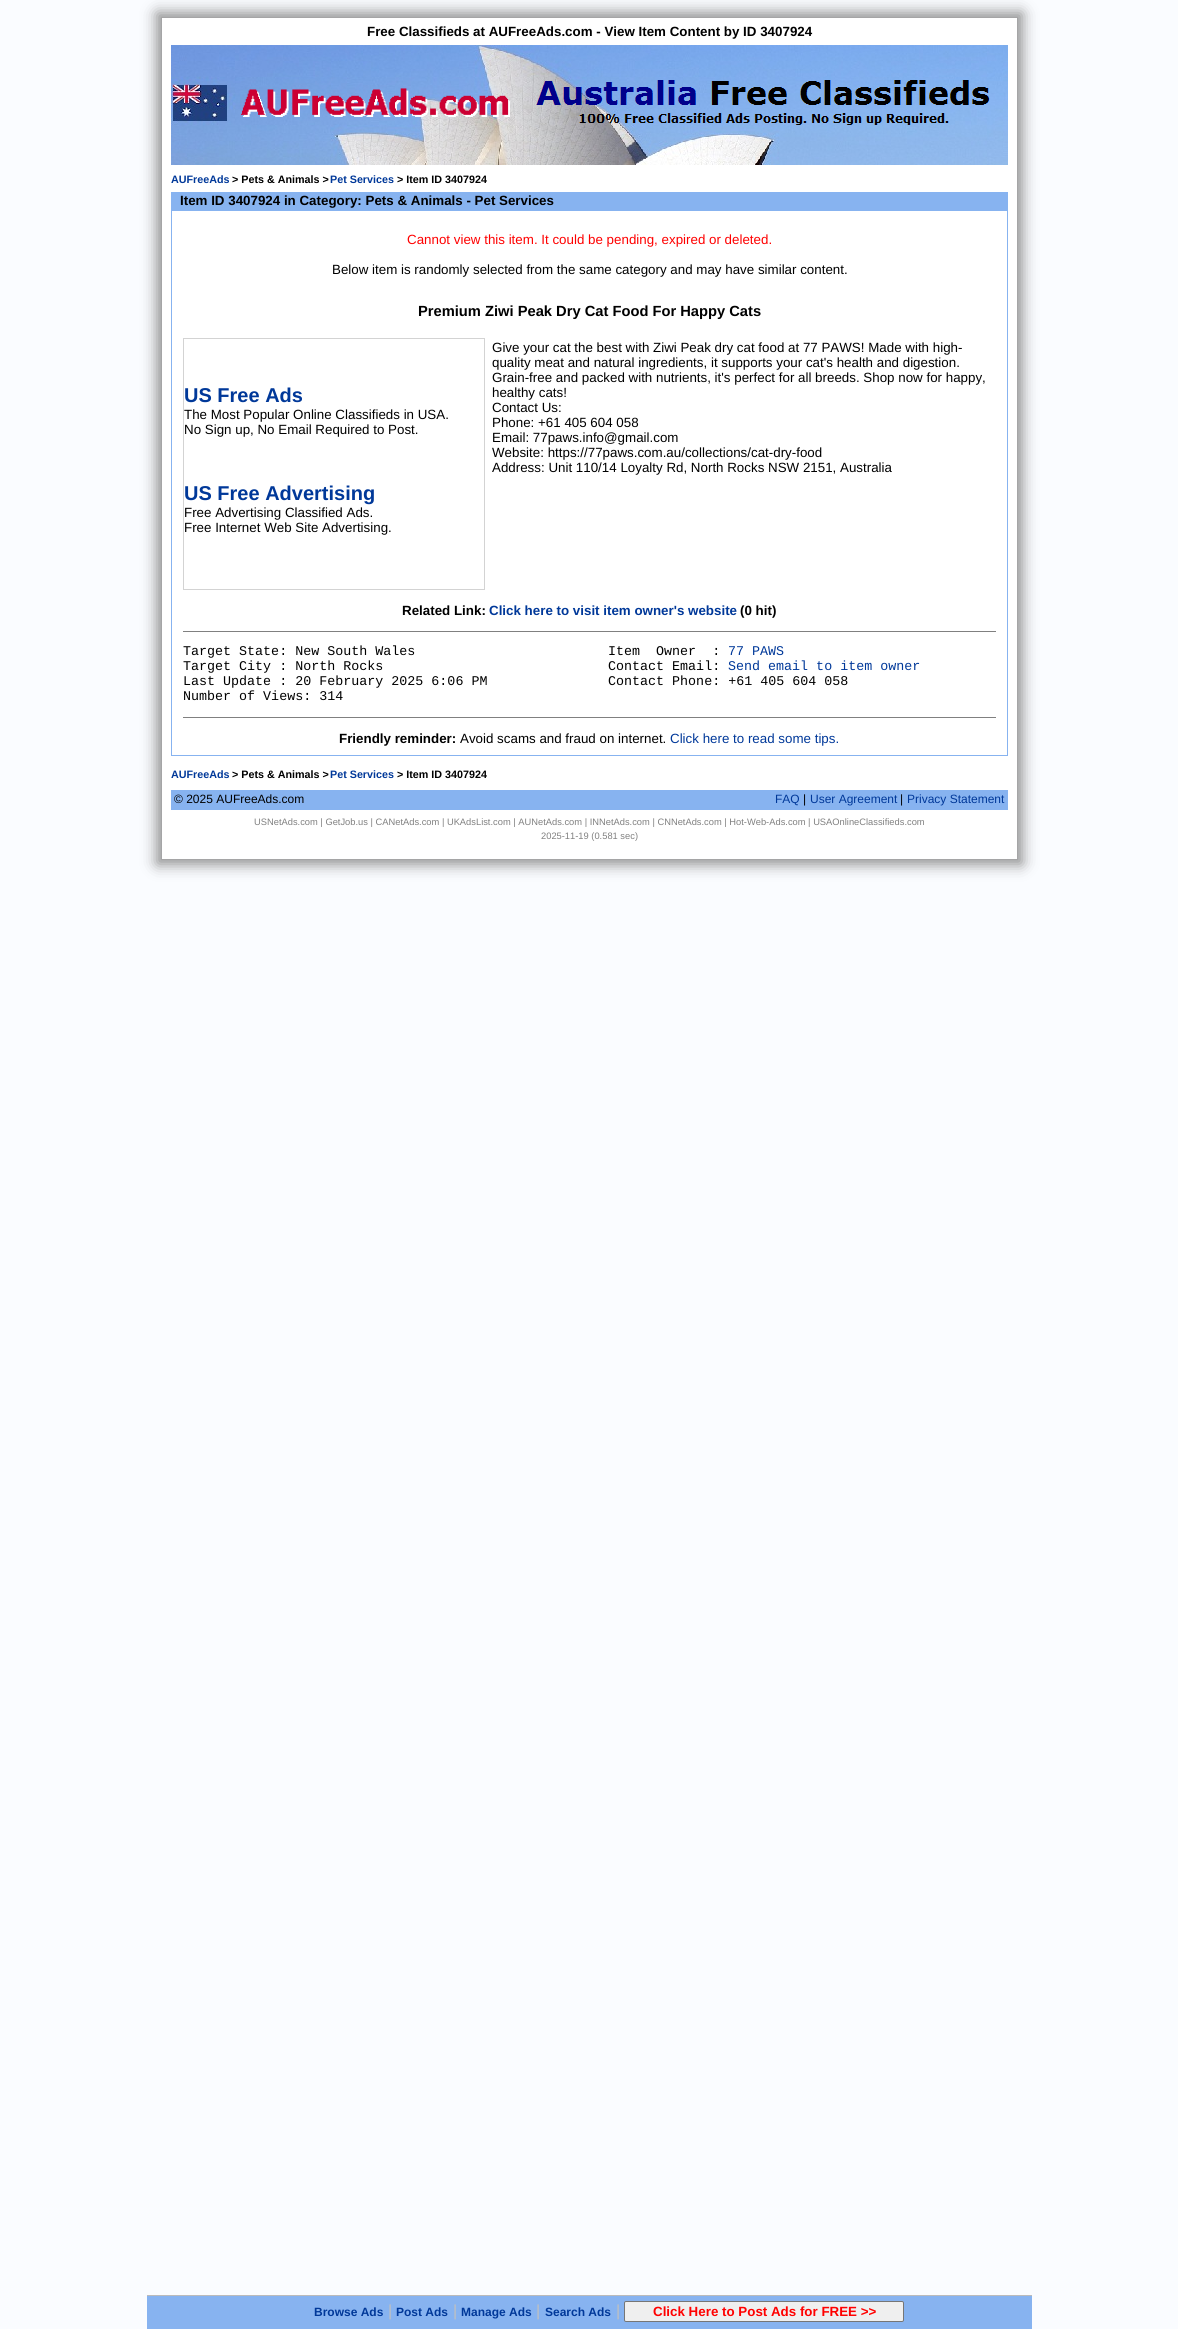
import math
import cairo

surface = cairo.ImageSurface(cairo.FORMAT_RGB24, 1178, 2329)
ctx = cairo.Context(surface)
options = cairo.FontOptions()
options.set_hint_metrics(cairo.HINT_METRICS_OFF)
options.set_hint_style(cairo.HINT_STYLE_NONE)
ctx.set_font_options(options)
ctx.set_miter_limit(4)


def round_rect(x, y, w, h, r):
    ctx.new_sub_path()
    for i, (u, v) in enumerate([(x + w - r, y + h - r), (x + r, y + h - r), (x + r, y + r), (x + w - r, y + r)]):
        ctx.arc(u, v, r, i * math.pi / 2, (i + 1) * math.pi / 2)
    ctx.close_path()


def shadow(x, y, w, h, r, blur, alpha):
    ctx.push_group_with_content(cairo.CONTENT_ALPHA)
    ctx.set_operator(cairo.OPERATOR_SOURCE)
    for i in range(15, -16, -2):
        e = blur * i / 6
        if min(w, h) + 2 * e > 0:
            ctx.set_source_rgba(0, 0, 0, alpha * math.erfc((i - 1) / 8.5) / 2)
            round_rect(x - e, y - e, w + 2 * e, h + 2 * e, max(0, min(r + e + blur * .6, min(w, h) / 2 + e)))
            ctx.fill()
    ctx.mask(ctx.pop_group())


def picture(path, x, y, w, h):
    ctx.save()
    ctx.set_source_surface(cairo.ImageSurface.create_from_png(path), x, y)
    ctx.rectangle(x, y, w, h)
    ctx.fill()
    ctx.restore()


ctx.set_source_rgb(0.98, 0.988, 1)
ctx.paint()
ctx.set_source_rgb(0.533, 0.533, 0.533)
shadow(157, 13, 865, 851, 0, 7.5, 1)
ctx.set_source_rgb(1, 1, 1)
ctx.rectangle(162, 18, 855, 841)
ctx.fill()
ctx.select_font_face("Liberation Sans", cairo.FONT_SLANT_NORMAL, cairo.FONT_WEIGHT_BOLD)
ctx.set_font_size(13.35)
ctx.set_source_rgb(0, 0, 0)
ctx.move_to(367, 36)
ctx.show_text("Free Classifieds at AUFreeAds.com - View Item Content by ID 3407924")
picture("img1.png", 171, 45, 837, 120)
ctx.set_font_size(10.75)
ctx.set_source_rgb(0, 0.22, 0.6)
ctx.move_to(171, 183)
ctx.show_text("AUFreeAds")
ctx.set_source_rgb(0, 0, 0)
ctx.move_to(232, 183)
ctx.show_text("> Pets & Animals >")
ctx.set_source_rgb(0, 0.22, 0.6)
ctx.move_to(330, 183)
ctx.show_text("Pet Services")
ctx.set_source_rgb(0, 0, 0)
ctx.move_to(397, 183)
ctx.show_text("> Item ID 3407924")
ctx.set_source_rgb(0.529, 0.702, 0.941)
ctx.rectangle(171, 192, 837, 564)
ctx.fill()
ctx.set_font_size(13.35)
ctx.set_source_rgb(0, 0, 0)
ctx.move_to(180, 205)
ctx.show_text("Item ID 3407924 in Category: Pets & Animals - Pet Services")
ctx.set_source_rgb(1, 1, 1)
ctx.rectangle(172, 211, 835, 544)
ctx.fill()
ctx.select_font_face("Liberation Sans")
ctx.set_source_rgb(1, 0, 0)
ctx.move_to(407, 244)
ctx.show_text("Cannot view this item. It could be pending, expired or deleted.")
ctx.set_source_rgb(0, 0, 0)
ctx.move_to(332, 274)
ctx.show_text("Below item is randomly selected from the same category and may have similar content.")
ctx.select_font_face("Liberation Sans", cairo.FONT_SLANT_NORMAL, cairo.FONT_WEIGHT_BOLD)
ctx.set_font_size(14.7)
ctx.move_to(418, 316)
ctx.show_text("Premium Ziwi Peak Dry Cat Food For Happy Cats")
ctx.select_font_face("Liberation Sans")
ctx.set_font_size(13.35)
ctx.move_to(492, 352)
ctx.show_text("Give your cat the best with Ziwi Peak dry cat food at 77 PAWS! Made with high-")
ctx.move_to(492, 367)
ctx.show_text("quality meat and natural ingredients, it supports your cat's health and digestion.")
ctx.move_to(492, 382)
ctx.show_text("Grain-free and packed with nutrients, it's perfect for all breeds. Shop now for happy,")
ctx.rectangle(183.5, 338.5, 301, 251)
ctx.set_source_rgb(0.827, 0.827, 0.827)
ctx.set_line_width(1)
ctx.stroke()
ctx.select_font_face("Liberation Sans", cairo.FONT_SLANT_NORMAL, cairo.FONT_WEIGHT_BOLD)
ctx.set_font_size(20)
ctx.set_source_rgb(0, 0.22, 0.6)
ctx.move_to(184, 402)
ctx.show_text("US Free Ads")
ctx.select_font_face("Liberation Sans")
ctx.set_font_size(13.35)
ctx.set_source_rgb(0, 0, 0)
ctx.move_to(184, 419)
ctx.show_text("The Most Popular Online Classifieds in USA.")
ctx.move_to(184, 434)
ctx.show_text("No Sign up, No Email Required to Post.")
ctx.select_font_face("Liberation Sans", cairo.FONT_SLANT_NORMAL, cairo.FONT_WEIGHT_BOLD)
ctx.set_font_size(20)
ctx.set_source_rgb(0, 0.22, 0.6)
ctx.move_to(184, 500)
ctx.show_text("US Free Advertising")
ctx.select_font_face("Liberation Sans")
ctx.set_font_size(13.35)
ctx.set_source_rgb(0, 0, 0)
ctx.move_to(184, 517)
ctx.show_text("Free Advertising Classified Ads.")
ctx.move_to(184, 532)
ctx.show_text("Free Internet Web Site Advertising.")
ctx.move_to(492, 397)
ctx.show_text("healthy cats!")
ctx.move_to(492, 412)
ctx.show_text("Contact Us:")
ctx.move_to(492, 427)
ctx.show_text("Phone: +61 405 604 058")
ctx.move_to(492, 442)
ctx.show_text("Email: 77paws.info@gmail.com")
ctx.move_to(492, 457)
ctx.show_text("Website: https://77paws.com.au/collections/cat-dry-food")
ctx.move_to(492, 472)
ctx.show_text("Address: Unit 110/14 Loyalty Rd, North Rocks NSW 2151, Australia")
ctx.select_font_face("Liberation Sans", cairo.FONT_SLANT_NORMAL, cairo.FONT_WEIGHT_BOLD)
ctx.move_to(402, 615)
ctx.show_text("Related Link:")
ctx.set_source_rgb(0, 0.22, 0.6)
ctx.move_to(489, 615)
ctx.show_text("Click here to visit item owner's website")
ctx.set_source_rgb(0, 0, 0)
ctx.move_to(740, 615)
ctx.show_text("(0 hit)")
ctx.set_source_rgb(0.502, 0.502, 0.502)
ctx.rectangle(183, 631, 813, 1)
ctx.fill()
ctx.select_font_face("Liberation Mono")
ctx.set_source_rgb(0, 0, 0)
ctx.move_to(183, 655)
ctx.show_text("Target State: New South Wales")
ctx.move_to(183, 670)
ctx.show_text("Target City : North Rocks")
ctx.move_to(183, 685)
ctx.show_text("Last Update : 20 February 2025 6:06 PM")
ctx.move_to(183, 700)
ctx.show_text("Number of Views: 314")
ctx.move_to(608, 655)
ctx.show_text("Item  Owner  :")
ctx.set_source_rgb(0, 0.22, 0.6)
ctx.move_to(728, 655)
ctx.show_text("77 PAWS")
ctx.set_source_rgb(0, 0, 0)
ctx.move_to(608, 670)
ctx.show_text("Contact Email:")
ctx.set_source_rgb(0, 0.22, 0.6)
ctx.move_to(728, 670)
ctx.show_text("Send email to item owner")
ctx.set_source_rgb(0, 0, 0)
ctx.move_to(608, 685)
ctx.show_text("Contact Phone: +61 405 604 058")
ctx.set_source_rgb(0.502, 0.502, 0.502)
ctx.rectangle(183, 717, 813, 1)
ctx.fill()
ctx.select_font_face("Liberation Sans", cairo.FONT_SLANT_NORMAL, cairo.FONT_WEIGHT_BOLD)
ctx.set_source_rgb(0, 0, 0)
ctx.move_to(339, 743)
ctx.show_text("Friendly reminder:")
ctx.select_font_face("Liberation Sans")
ctx.move_to(460, 743)
ctx.show_text("Avoid scams and fraud on internet.")
ctx.set_source_rgb(0, 0.22, 0.6)
ctx.move_to(670, 743)
ctx.show_text("Click here to read some tips.")
ctx.select_font_face("Liberation Sans", cairo.FONT_SLANT_NORMAL, cairo.FONT_WEIGHT_BOLD)
ctx.set_font_size(10.75)
ctx.move_to(171, 778)
ctx.show_text("AUFreeAds")
ctx.set_source_rgb(0, 0, 0)
ctx.move_to(232, 778)
ctx.show_text("> Pets & Animals >")
ctx.set_source_rgb(0, 0.22, 0.6)
ctx.move_to(330, 778)
ctx.show_text("Pet Services")
ctx.set_source_rgb(0, 0, 0)
ctx.move_to(397, 778)
ctx.show_text("> Item ID 3407924")
ctx.set_source_rgb(0.529, 0.702, 0.941)
ctx.rectangle(171, 790, 837, 20)
ctx.fill()
ctx.select_font_face("Liberation Sans")
ctx.set_font_size(12)
ctx.set_source_rgb(0, 0, 0)
ctx.move_to(174, 803)
ctx.show_text("© 2025 AUFreeAds.com")
ctx.set_source_rgb(0, 0.22, 0.6)
ctx.move_to(775, 803)
ctx.show_text("FAQ")
ctx.set_source_rgb(0, 0, 0)
ctx.move_to(803, 803)
ctx.show_text("|")
ctx.set_source_rgb(0, 0.22, 0.6)
ctx.move_to(810, 803)
ctx.show_text("User Agreement")
ctx.set_source_rgb(0, 0, 0)
ctx.move_to(900, 803)
ctx.show_text("|")
ctx.set_source_rgb(0, 0.22, 0.6)
ctx.move_to(907, 803)
ctx.show_text("Privacy Statement")
ctx.set_font_size(9.33)
ctx.set_source_rgb(0.502, 0.502, 0.502)
ctx.move_to(254, 825)
ctx.show_text("USNetAds.com | GetJob.us | CANetAds.com | UKAdsList.com | AUNetAds.com | INNetAds.com | CNNetAds.com | Hot-Web-Ads.com | USAOnlineClassifieds.com")
ctx.move_to(541, 839)
ctx.show_text("2025-11-19 (0.581 sec)")
ctx.set_source_rgb(0.529, 0.702, 0.941)
ctx.rectangle(147, 2296, 885, 33)
ctx.fill()
ctx.set_source_rgb(0.733, 0.733, 0.733)
ctx.rectangle(147, 2295, 885, 1)
ctx.fill()
ctx.select_font_face("Liberation Sans", cairo.FONT_SLANT_NORMAL, cairo.FONT_WEIGHT_BOLD)
ctx.set_font_size(12)
ctx.set_source_rgb(0, 0.22, 0.6)
ctx.move_to(314, 2316)
ctx.show_text("Browse Ads")
ctx.select_font_face("Liberation Sans")
ctx.set_font_size(16)
ctx.set_source_rgb(0.753, 0.753, 0.753)
ctx.move_to(388, 2316)
ctx.show_text("|")
ctx.select_font_face("Liberation Sans", cairo.FONT_SLANT_NORMAL, cairo.FONT_WEIGHT_BOLD)
ctx.set_font_size(12)
ctx.set_source_rgb(0, 0.22, 0.6)
ctx.move_to(396, 2316)
ctx.show_text("Post Ads")
ctx.select_font_face("Liberation Sans")
ctx.set_font_size(16)
ctx.set_source_rgb(0.753, 0.753, 0.753)
ctx.move_to(453, 2316)
ctx.show_text("|")
ctx.select_font_face("Liberation Sans", cairo.FONT_SLANT_NORMAL, cairo.FONT_WEIGHT_BOLD)
ctx.set_font_size(12)
ctx.set_source_rgb(0, 0.22, 0.6)
ctx.move_to(461, 2316)
ctx.show_text("Manage Ads")
ctx.select_font_face("Liberation Sans")
ctx.set_font_size(16)
ctx.set_source_rgb(0.753, 0.753, 0.753)
ctx.move_to(536, 2316)
ctx.show_text("|")
ctx.select_font_face("Liberation Sans", cairo.FONT_SLANT_NORMAL, cairo.FONT_WEIGHT_BOLD)
ctx.set_font_size(12)
ctx.set_source_rgb(0, 0.22, 0.6)
ctx.move_to(545, 2316)
ctx.show_text("Search Ads")
ctx.select_font_face("Liberation Sans")
ctx.set_font_size(16)
ctx.set_source_rgb(0.753, 0.753, 0.753)
ctx.move_to(616, 2316)
ctx.show_text("|")
ctx.set_source_rgb(0.937, 0.937, 0.937)
round_rect(624.5, 2301.5, 279, 20, 1.5)
ctx.fill_preserve()
ctx.set_source_rgb(0.463, 0.463, 0.463)
ctx.stroke()
ctx.select_font_face("Liberation Sans", cairo.FONT_SLANT_NORMAL, cairo.FONT_WEIGHT_BOLD)
ctx.set_font_size(13.35)
ctx.set_source_rgb(1, 0, 0)
ctx.move_to(653, 2316)
ctx.show_text("Click Here to Post Ads for FREE >>")
surface.write_to_png("page.png")
